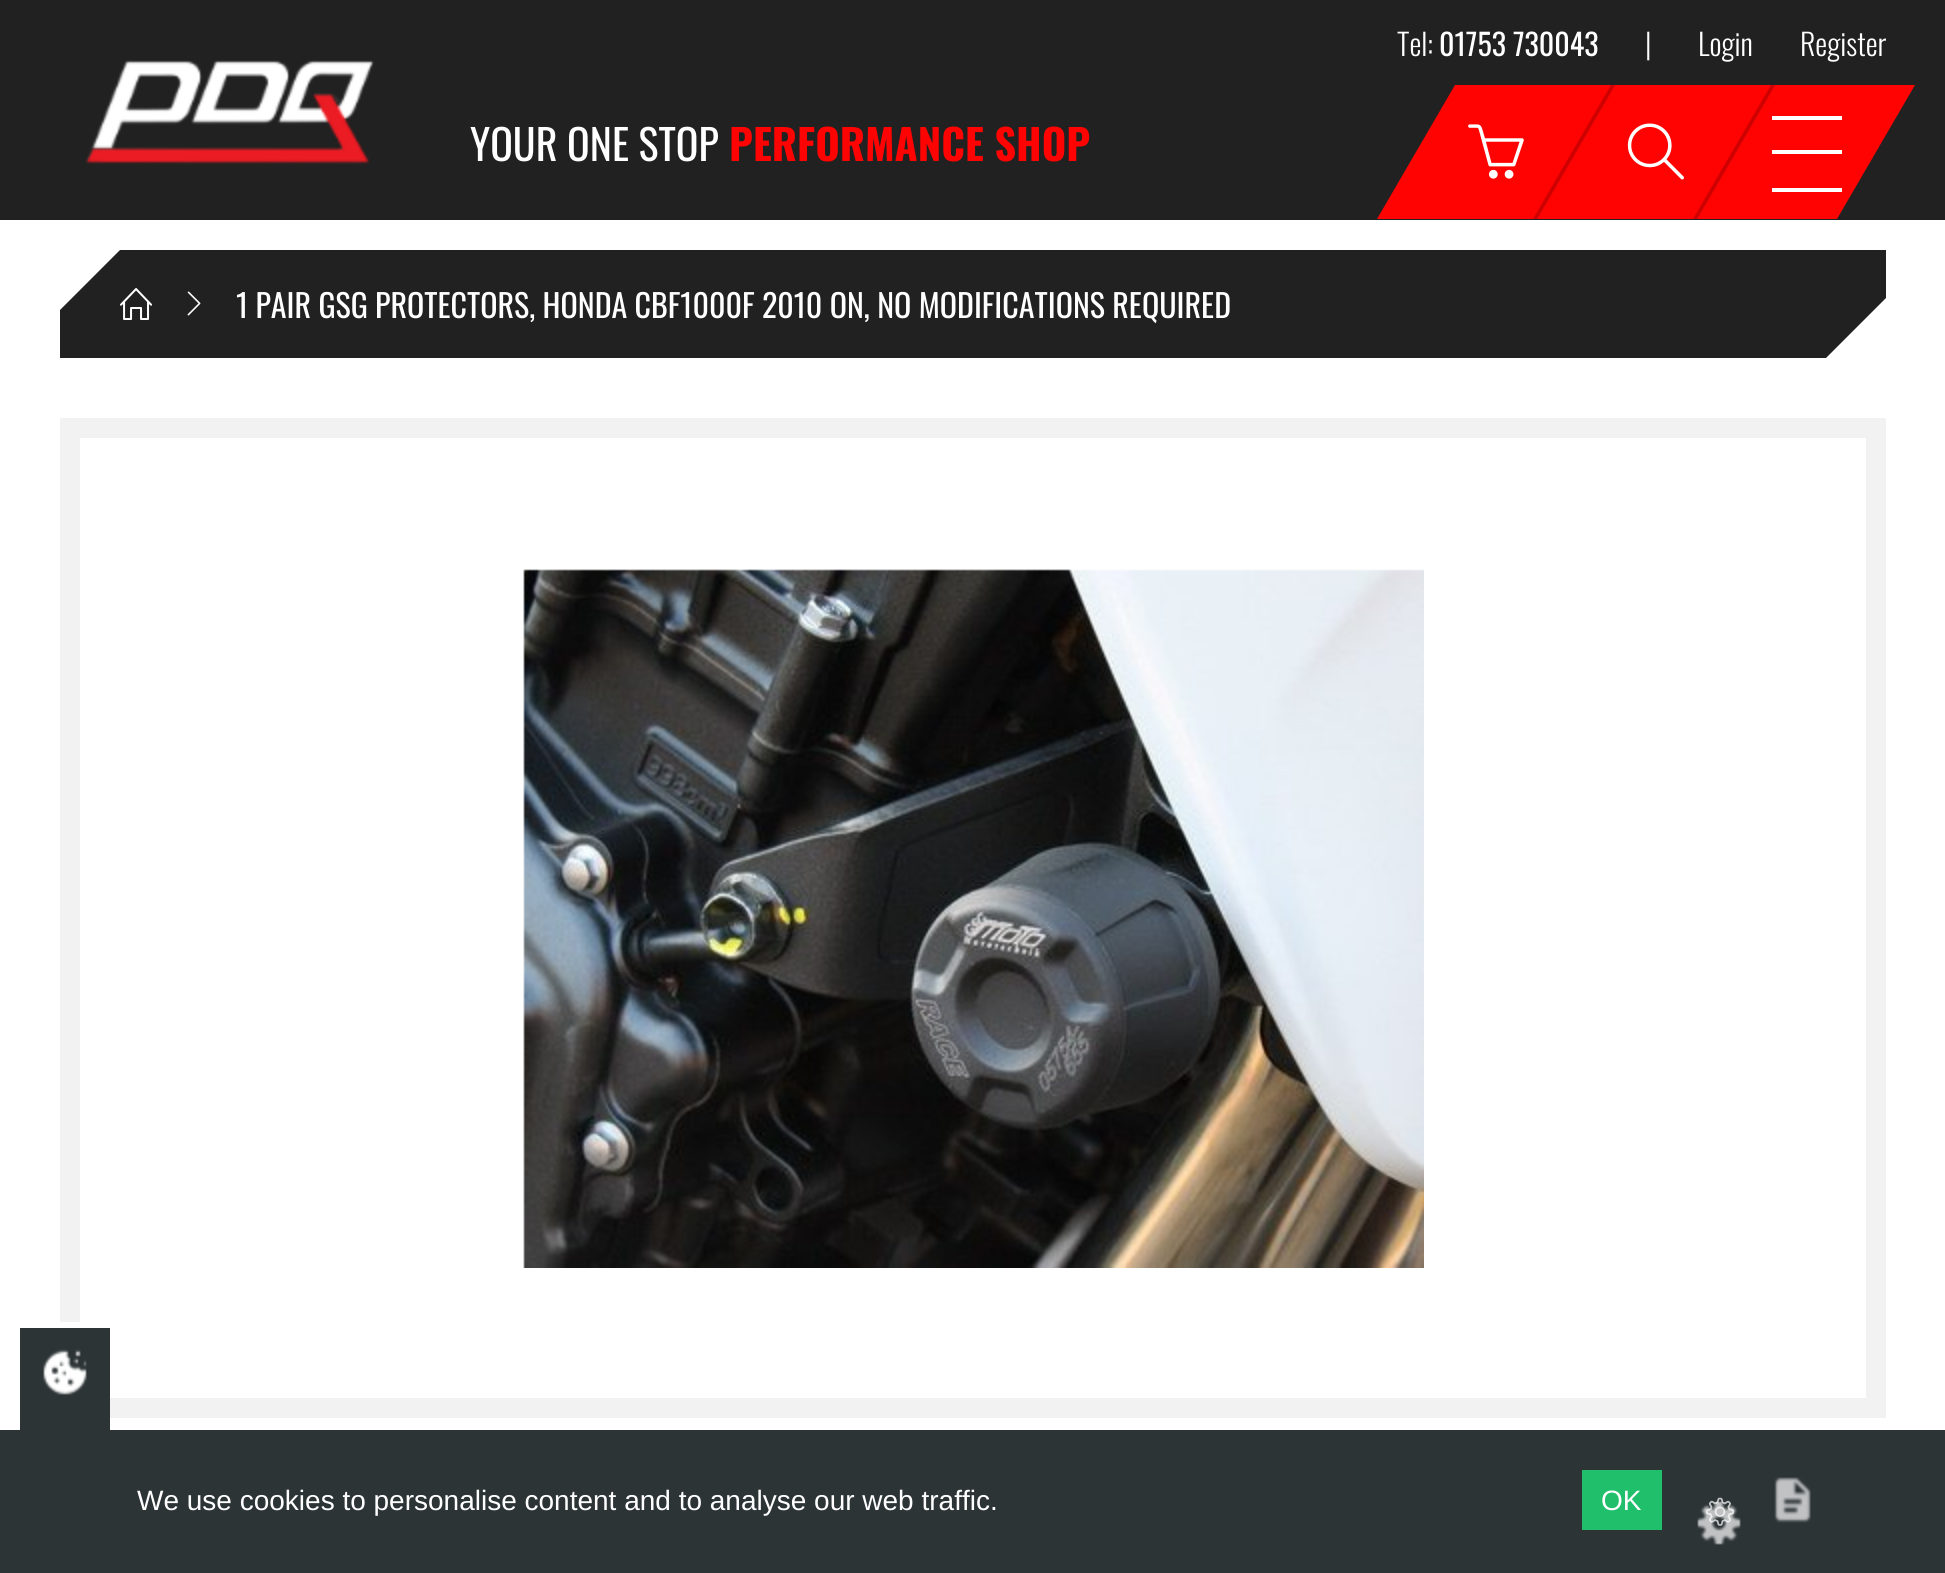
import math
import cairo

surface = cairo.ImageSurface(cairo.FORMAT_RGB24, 1945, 1573)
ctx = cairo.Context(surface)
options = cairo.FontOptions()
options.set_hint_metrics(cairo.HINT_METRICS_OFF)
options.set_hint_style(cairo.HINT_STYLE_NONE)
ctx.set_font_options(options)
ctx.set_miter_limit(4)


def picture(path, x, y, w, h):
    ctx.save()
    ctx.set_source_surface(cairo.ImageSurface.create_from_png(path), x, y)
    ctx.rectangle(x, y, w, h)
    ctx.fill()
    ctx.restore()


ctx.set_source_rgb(1, 1, 1)
ctx.paint()
ctx.set_source_rgb(0.129, 0.129, 0.129)
ctx.rectangle(0, 0, 1945, 220)
ctx.fill()
ctx.select_font_face("Oswald Light")
ctx.set_font_size(30)
ctx.set_source_rgb(1, 1, 1)
ctx.move_to(1397, 56)
ctx.show_text("Tel:")
ctx.select_font_face("Oswald")
ctx.move_to(1439, 56)
ctx.show_text("01753 730043")
ctx.select_font_face("Oswald Light")
ctx.move_to(1645, 56)
ctx.show_text("|")
ctx.move_to(1698, 56)
ctx.show_text("Login")
ctx.move_to(1800, 56)
ctx.show_text("Register")
picture("img1.png", 85, 60, 289, 105)
ctx.select_font_face("Oswald")
ctx.set_font_size(42)
ctx.move_to(470, 161)
ctx.show_text("YOUR ONE STOP")
ctx.select_font_face("Oswald", cairo.FONT_SLANT_NORMAL, cairo.FONT_WEIGHT_BOLD)
ctx.set_source_rgb(1, 0.008, 0.008)
ctx.move_to(729, 161)
ctx.show_text("PERFORMANCE SHOP")
ctx.new_path()
ctx.move_to(1455, 85)
ctx.line_to(1615, 85)
ctx.line_to(1537, 219)
ctx.line_to(1377, 219)
ctx.close_path()
ctx.fill()
ctx.set_source_rgb(0.808, 0, 0)
ctx.new_path()
ctx.move_to(1611, 85)
ctx.line_to(1615, 85)
ctx.line_to(1537, 219)
ctx.line_to(1533, 219)
ctx.close_path()
ctx.fill()
picture("img2.png", 1468, 124, 56, 55)
ctx.set_source_rgb(1, 0.008, 0.008)
ctx.new_path()
ctx.move_to(1615, 85)
ctx.line_to(1775, 85)
ctx.line_to(1697, 219)
ctx.line_to(1537, 219)
ctx.close_path()
ctx.fill()
ctx.set_source_rgb(0.808, 0, 0)
ctx.new_path()
ctx.move_to(1771, 85)
ctx.line_to(1775, 85)
ctx.line_to(1697, 219)
ctx.line_to(1693, 219)
ctx.close_path()
ctx.fill()
picture("img3.png", 1627, 123, 57, 57)
ctx.set_source_rgb(1, 0.008, 0.008)
ctx.new_path()
ctx.move_to(1775, 85)
ctx.line_to(1915, 85)
ctx.line_to(1837, 219)
ctx.line_to(1697, 219)
ctx.close_path()
ctx.fill()
ctx.set_source_rgb(1, 1, 1)
ctx.rectangle(1772, 116, 70, 4)
ctx.fill()
ctx.rectangle(1772, 150, 70, 4)
ctx.fill()
ctx.rectangle(1772, 188, 70, 4)
ctx.fill()
ctx.set_source_rgb(0.129, 0.129, 0.129)
ctx.new_path()
ctx.move_to(120, 250)
ctx.line_to(60, 310)
ctx.line_to(60, 358)
ctx.line_to(1826, 358)
ctx.line_to(1886, 298)
ctx.line_to(1886, 250)
ctx.close_path()
ctx.fill()
picture("img4.png", 120, 288, 33, 32)
picture("img5.png", 187, 291, 14, 25)
ctx.select_font_face("Oswald")
ctx.set_font_size(32)
ctx.set_source_rgb(1, 1, 1)
ctx.move_to(236, 318)
ctx.show_text("1 PAIR GSG PROTECTORS, HONDA CBF1000F 2010 ON, NO MODIFICATIONS REQUIRED")
ctx.set_source_rgb(0.949, 0.949, 0.949)
ctx.rectangle(60, 418, 1826, 1000)
ctx.fill()
ctx.set_source_rgb(1, 1, 1)
ctx.rectangle(80, 438, 1786, 960)
ctx.fill()
picture("img6.png", 523, 569, 901, 699)
ctx.set_source_rgb(0.176, 0.204, 0.212)
ctx.rectangle(0, 1430, 1945, 143)
ctx.fill()
ctx.rectangle(20, 1328, 90, 102)
ctx.fill()
ctx.set_source_rgb(1, 1, 1)
ctx.rectangle(60, 1322, 20, 6)
ctx.fill()
picture("img7.png", 43, 1349, 44, 46)
ctx.select_font_face("Liberation Sans")
ctx.set_font_size(28)
ctx.move_to(137, 1510)
ctx.show_text("We use cookies to personalise content and to analyse our web traffic.")
ctx.set_source_rgb(0.125, 0.749, 0.42)
ctx.rectangle(1582, 1470, 80, 60)
ctx.fill()
ctx.set_source_rgb(1, 1, 1)
ctx.move_to(1601, 1510)
ctx.show_text("OK")
picture("img8.png", 1697, 1501, 44, 44)
picture("img9.png", 1706, 1497, 28, 29)
picture("img10.png", 1774, 1477, 37, 46)
surface.write_to_png("page.png")
